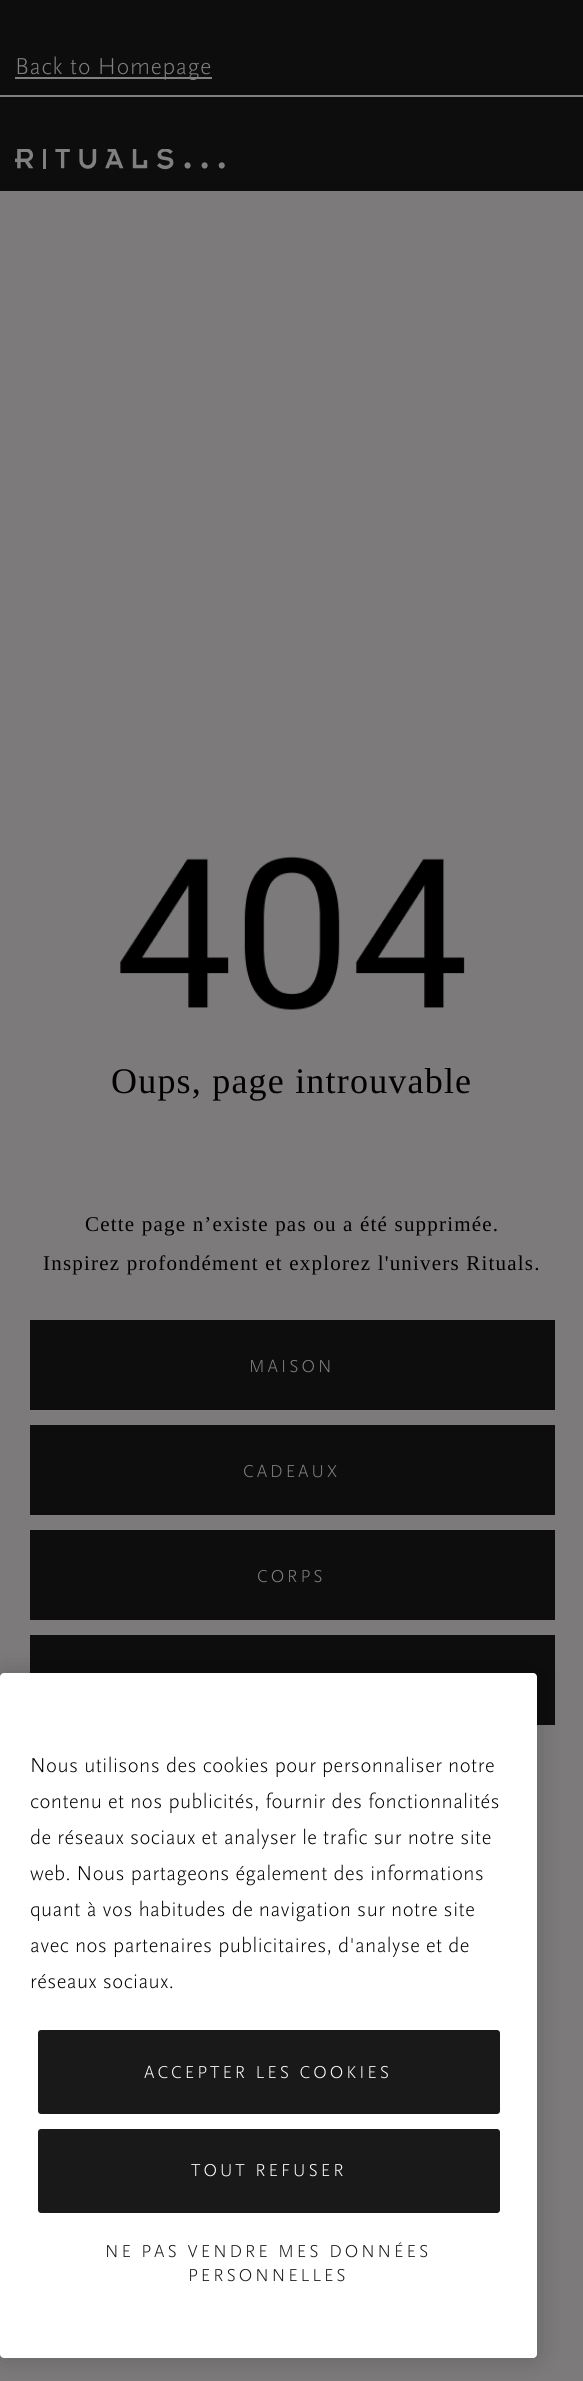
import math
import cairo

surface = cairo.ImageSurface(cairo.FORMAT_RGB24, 583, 2381)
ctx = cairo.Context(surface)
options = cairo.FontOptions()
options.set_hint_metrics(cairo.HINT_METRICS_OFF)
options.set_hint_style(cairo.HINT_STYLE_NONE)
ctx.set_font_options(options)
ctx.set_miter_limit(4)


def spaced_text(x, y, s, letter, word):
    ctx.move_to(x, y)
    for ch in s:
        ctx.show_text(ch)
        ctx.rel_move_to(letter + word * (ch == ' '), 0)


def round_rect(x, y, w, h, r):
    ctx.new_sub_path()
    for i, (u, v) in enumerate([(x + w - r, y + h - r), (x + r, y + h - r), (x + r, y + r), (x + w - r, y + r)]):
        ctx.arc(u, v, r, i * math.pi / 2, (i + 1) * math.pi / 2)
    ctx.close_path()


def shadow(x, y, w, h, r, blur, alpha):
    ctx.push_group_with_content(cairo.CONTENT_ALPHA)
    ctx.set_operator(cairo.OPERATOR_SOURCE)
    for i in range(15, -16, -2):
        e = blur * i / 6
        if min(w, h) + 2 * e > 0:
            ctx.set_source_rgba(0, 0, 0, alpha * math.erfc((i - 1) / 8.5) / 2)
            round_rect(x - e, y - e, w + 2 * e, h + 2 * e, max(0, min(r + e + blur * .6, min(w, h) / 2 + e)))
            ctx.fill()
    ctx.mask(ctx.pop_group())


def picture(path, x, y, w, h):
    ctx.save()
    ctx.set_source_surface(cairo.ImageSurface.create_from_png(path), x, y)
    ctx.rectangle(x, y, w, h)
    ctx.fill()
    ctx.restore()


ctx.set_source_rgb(0.051, 0.051, 0.051)
ctx.paint()
ctx.set_source_rgb(0.502, 0.502, 0.502)
ctx.rectangle(0, 95, 583, 2)
ctx.fill()
ctx.rectangle(15, 77, 197, 2)
ctx.fill()
ctx.select_font_face("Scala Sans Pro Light")
ctx.set_font_size(24)
spaced_text(15, 74, "Back to Homepage", 0.75, 0)
picture("img1.png", 15, 149, 210, 21)
ctx.set_source_rgb(0.486, 0.478, 0.478)
ctx.rectangle(0, 191, 583, 2190)
ctx.fill()
picture("img2.png", 120, 856, 345, 154)
ctx.select_font_face("Liberation Serif")
ctx.set_font_size(36)
ctx.set_source_rgb(0, 0, 0)
spaced_text(111, 1093, "Oups, page introuvable", 1.2, 0)
ctx.set_font_size(21)
spaced_text(85, 1231, "Cette page n’existe pas ou a été supprimée.", 1.2, 0)
spaced_text(43, 1270, "Inspirez profondément et explorez l'univers Rituals.", 1.2, 0)
ctx.set_source_rgb(0.051, 0.051, 0.051)
ctx.rectangle(30, 1320, 525, 90)
ctx.fill()
ctx.select_font_face("Scala Sans Pro Light")
ctx.set_font_size(18)
ctx.set_source_rgb(0.502, 0.502, 0.502)
spaced_text(249, 1372, "MAISON", 3, 0)
ctx.set_source_rgb(0.051, 0.051, 0.051)
ctx.rectangle(30, 1425, 525, 90)
ctx.fill()
ctx.set_source_rgb(0.502, 0.502, 0.502)
spaced_text(243, 1477, "CADEAUX", 3, 0)
ctx.set_source_rgb(0.051, 0.051, 0.051)
ctx.rectangle(30, 1530, 525, 90)
ctx.fill()
ctx.set_source_rgb(0.502, 0.502, 0.502)
spaced_text(257, 1582, "CORPS", 3, 0)
ctx.set_source_rgb(0.051, 0.051, 0.051)
ctx.rectangle(30, 1635, 525, 90)
ctx.fill()
ctx.set_source_rgb(0, 0, 0)
shadow(0, 1673, 537, 685, 4, 13.5, 0.2)
ctx.set_source_rgb(1, 1, 1)
round_rect(0, 1673, 537, 685, 4)
ctx.fill()
ctx.set_font_size(21)
ctx.set_source_rgb(0, 0, 0)
spaced_text(30, 1772, "Nous utilisons des cookies pour personnaliser notre", 0.45, 0)
spaced_text(30, 1808, "contenu et nos publicités, fournir des fonctionnalités", 0.45, 0)
spaced_text(30, 1844, "de réseaux sociaux et analyser le trafic sur notre site", 0.45, 0)
spaced_text(30, 1880, "web. Nous partageons également des informations", 0.45, 0)
spaced_text(30, 1916, "quant à vos habitudes de navigation sur notre site", 0.45, 0)
spaced_text(30, 1952, "avec nos partenaires publicitaires, d'analyse et de", 0.45, 0)
spaced_text(30, 1988, "réseaux sociaux.", 0.45, 0)
ctx.set_source_rgb(0.102, 0.098, 0.098)
round_rect(38, 2030, 462, 84, 3)
ctx.fill()
ctx.set_font_size(18)
ctx.set_source_rgb(1, 1, 1)
spaced_text(144, 2078, "ACCEPTER LES COOKIES", 3, 0)
ctx.set_source_rgb(0.102, 0.098, 0.098)
round_rect(38, 2129, 462, 84, 3)
ctx.fill()
ctx.set_source_rgb(1, 1, 1)
spaced_text(191, 2176, "TOUT REFUSER", 3, 0)
ctx.set_source_rgb(0.102, 0.098, 0.098)
spaced_text(105, 2257, "NE PAS VENDRE MES DONNÉES", 3, 0)
spaced_text(188, 2281, "PERSONNELLES", 3, 0)
surface.write_to_png("page.png")
